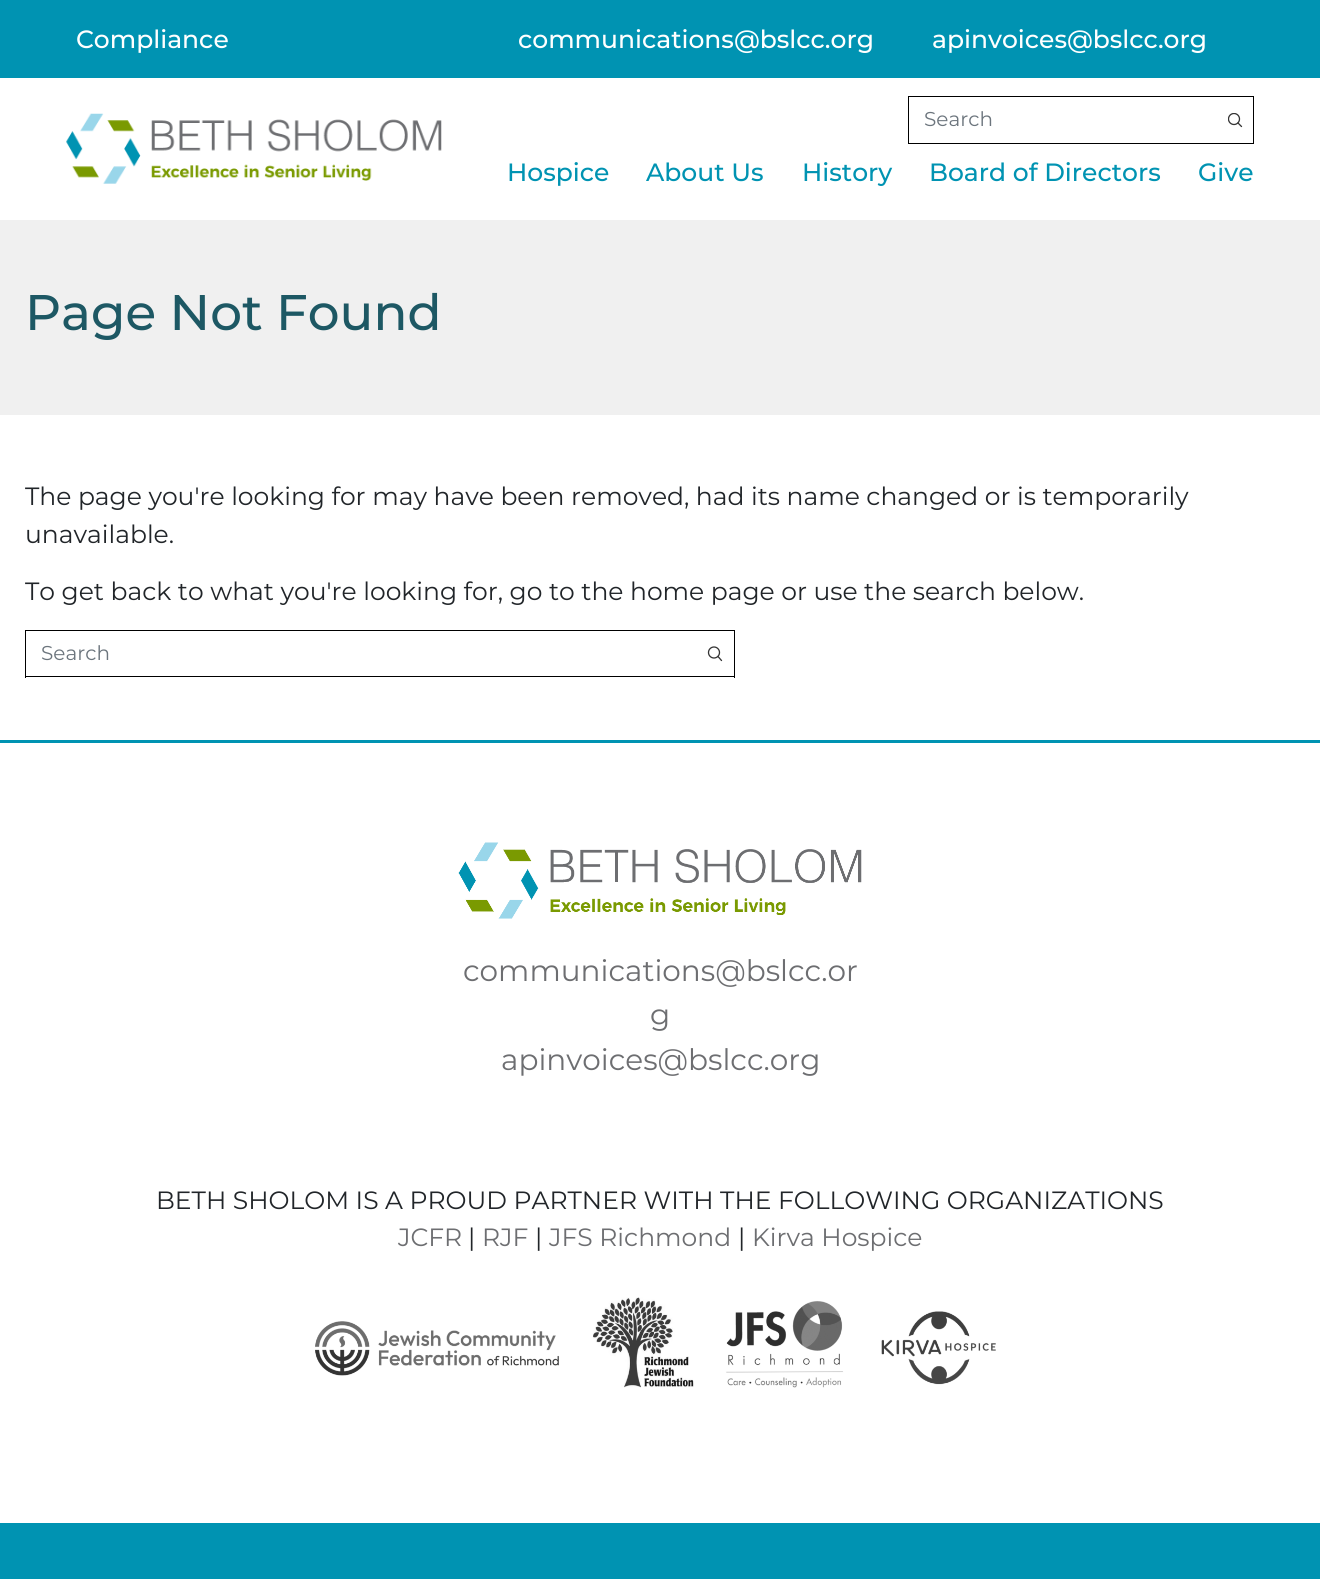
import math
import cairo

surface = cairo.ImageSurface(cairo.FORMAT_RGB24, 1320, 1579)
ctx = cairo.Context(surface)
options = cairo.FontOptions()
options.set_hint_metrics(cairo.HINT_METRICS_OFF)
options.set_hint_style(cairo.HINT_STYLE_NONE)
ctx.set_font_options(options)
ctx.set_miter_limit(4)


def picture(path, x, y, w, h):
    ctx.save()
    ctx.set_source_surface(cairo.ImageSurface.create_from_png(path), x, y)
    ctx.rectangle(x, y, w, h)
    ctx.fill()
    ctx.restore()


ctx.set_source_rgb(1, 1, 1)
ctx.paint()
ctx.set_source_rgb(0, 0.576, 0.698)
ctx.rectangle(0, 0, 1320, 78)
ctx.fill()
ctx.select_font_face("Montserrat Medium")
ctx.set_font_size(25)
ctx.set_source_rgb(1, 1, 1)
ctx.move_to(76, 48)
ctx.show_text("Compliance")
ctx.move_to(518, 48)
ctx.show_text("communications@bslcc.org")
ctx.move_to(932, 48)
ctx.show_text("apinvoices@bslcc.org")
picture("img1.png", 66, 113, 376, 71)
ctx.set_source_rgb(0, 0, 0)
ctx.rectangle(908, 96, 346, 1)
ctx.fill()
ctx.rectangle(908, 143, 311, 1)
ctx.fill()
ctx.rectangle(908, 96, 1, 48)
ctx.fill()
ctx.select_font_face("Montserrat")
ctx.set_font_size(20)
ctx.set_source_rgb(0.424, 0.459, 0.49)
ctx.move_to(924, 126)
ctx.show_text("Search")
ctx.set_source_rgb(0, 0, 0)
ctx.rectangle(1253, 96, 1, 48)
ctx.fill()
ctx.rectangle(1219, 143, 35, 1)
ctx.fill()
ctx.save()
ctx.rectangle(1228, 113, 15, 15)
ctx.clip()
ctx.arc(1234, 119, 5.5, 0, 2 * math.pi)
ctx.set_source_rgb(0.204, 0.204, 0.204)
ctx.set_line_width(1.3)
ctx.stroke()
ctx.restore()
ctx.new_path()
ctx.move_to(1238, 123)
ctx.line_to(1241.5, 126.5)
ctx.set_source_rgb(0.204, 0.204, 0.204)
ctx.set_line_width(1.3)
ctx.set_line_cap(cairo.LINE_CAP_ROUND)
ctx.stroke()
ctx.select_font_face("Montserrat Medium")
ctx.set_font_size(25)
ctx.set_source_rgb(0, 0.576, 0.698)
ctx.move_to(507, 181)
ctx.show_text("Hospice")
ctx.move_to(646, 181)
ctx.show_text("About Us")
ctx.move_to(802, 181)
ctx.show_text("History")
ctx.move_to(929, 181)
ctx.show_text("Board of Directors")
ctx.move_to(1198, 181)
ctx.show_text("Give")
ctx.set_source_rgb(0.941, 0.941, 0.941)
ctx.rectangle(0, 220, 1320, 195)
ctx.fill()
ctx.set_font_size(50)
ctx.set_source_rgb(0.114, 0.345, 0.392)
ctx.move_to(25, 330)
ctx.show_text("Page Not Found")
ctx.select_font_face("Montserrat")
ctx.set_font_size(25)
ctx.set_source_rgb(0.129, 0.145, 0.161)
ctx.move_to(25, 505)
ctx.show_text("The page you're looking for may have been removed, had its name changed or is temporarily")
ctx.move_to(25, 543)
ctx.show_text("unavailable.")
ctx.move_to(25, 600)
ctx.show_text("To get back to what you're looking for, go to the home page or use the search below.")
ctx.set_source_rgb(0, 0, 0)
ctx.rectangle(25, 630, 710, 1)
ctx.fill()
ctx.rectangle(25, 676, 673, 1)
ctx.fill()
ctx.rectangle(25, 630, 1, 48)
ctx.fill()
ctx.set_font_size(20)
ctx.set_source_rgb(0.424, 0.459, 0.49)
ctx.move_to(41, 660)
ctx.show_text("Search")
ctx.set_source_rgb(0, 0, 0)
ctx.rectangle(734, 630, 1, 48)
ctx.fill()
ctx.rectangle(698, 676, 37, 1)
ctx.fill()
ctx.arc(714, 652.5, 5.5, 0, 2 * math.pi)
ctx.set_source_rgb(0.204, 0.204, 0.204)
ctx.set_line_cap(cairo.LINE_CAP_BUTT)
ctx.stroke()
ctx.new_path()
ctx.move_to(718, 656.5)
ctx.line_to(721.5, 660.5)
ctx.set_line_cap(cairo.LINE_CAP_ROUND)
ctx.stroke()
ctx.set_source_rgb(0, 0.576, 0.698)
ctx.rectangle(0, 740, 1320, 3)
ctx.fill()
picture("img2.png", 458, 842, 404, 77)
ctx.set_font_size(29.5)
ctx.set_source_rgb(0.427, 0.431, 0.443)
ctx.move_to(463, 981)
ctx.show_text("communications@bslcc.or")
ctx.move_to(650, 1025)
ctx.show_text("g")
ctx.move_to(501, 1070)
ctx.show_text("apinvoices@bslcc.org")
ctx.set_font_size(25)
ctx.set_source_rgb(0.129, 0.145, 0.161)
ctx.move_to(156, 1209)
ctx.show_text("BETH SHOLOM IS A PROUD PARTNER WITH THE FOLLOWING ORGANIZATIONS")
ctx.set_source_rgb(0.427, 0.431, 0.443)
ctx.move_to(398, 1246)
ctx.show_text("JCFR")
ctx.set_source_rgb(0.129, 0.145, 0.161)
ctx.move_to(468, 1246)
ctx.show_text("|")
ctx.set_source_rgb(0.427, 0.431, 0.443)
ctx.move_to(482, 1246)
ctx.show_text("RJF")
ctx.set_source_rgb(0.129, 0.145, 0.161)
ctx.move_to(535, 1246)
ctx.show_text("|")
ctx.set_source_rgb(0.427, 0.431, 0.443)
ctx.move_to(549, 1246)
ctx.show_text("JFS Richmond")
ctx.set_source_rgb(0.129, 0.145, 0.161)
ctx.move_to(738, 1246)
ctx.show_text("|")
ctx.set_source_rgb(0.427, 0.431, 0.443)
ctx.move_to(752, 1246)
ctx.show_text("Kirva Hospice")
picture("img3.png", 315, 1297, 681, 91)
ctx.set_source_rgb(0, 0.576, 0.698)
ctx.rectangle(0, 1523, 1320, 56)
ctx.fill()
surface.write_to_png("page.png")
